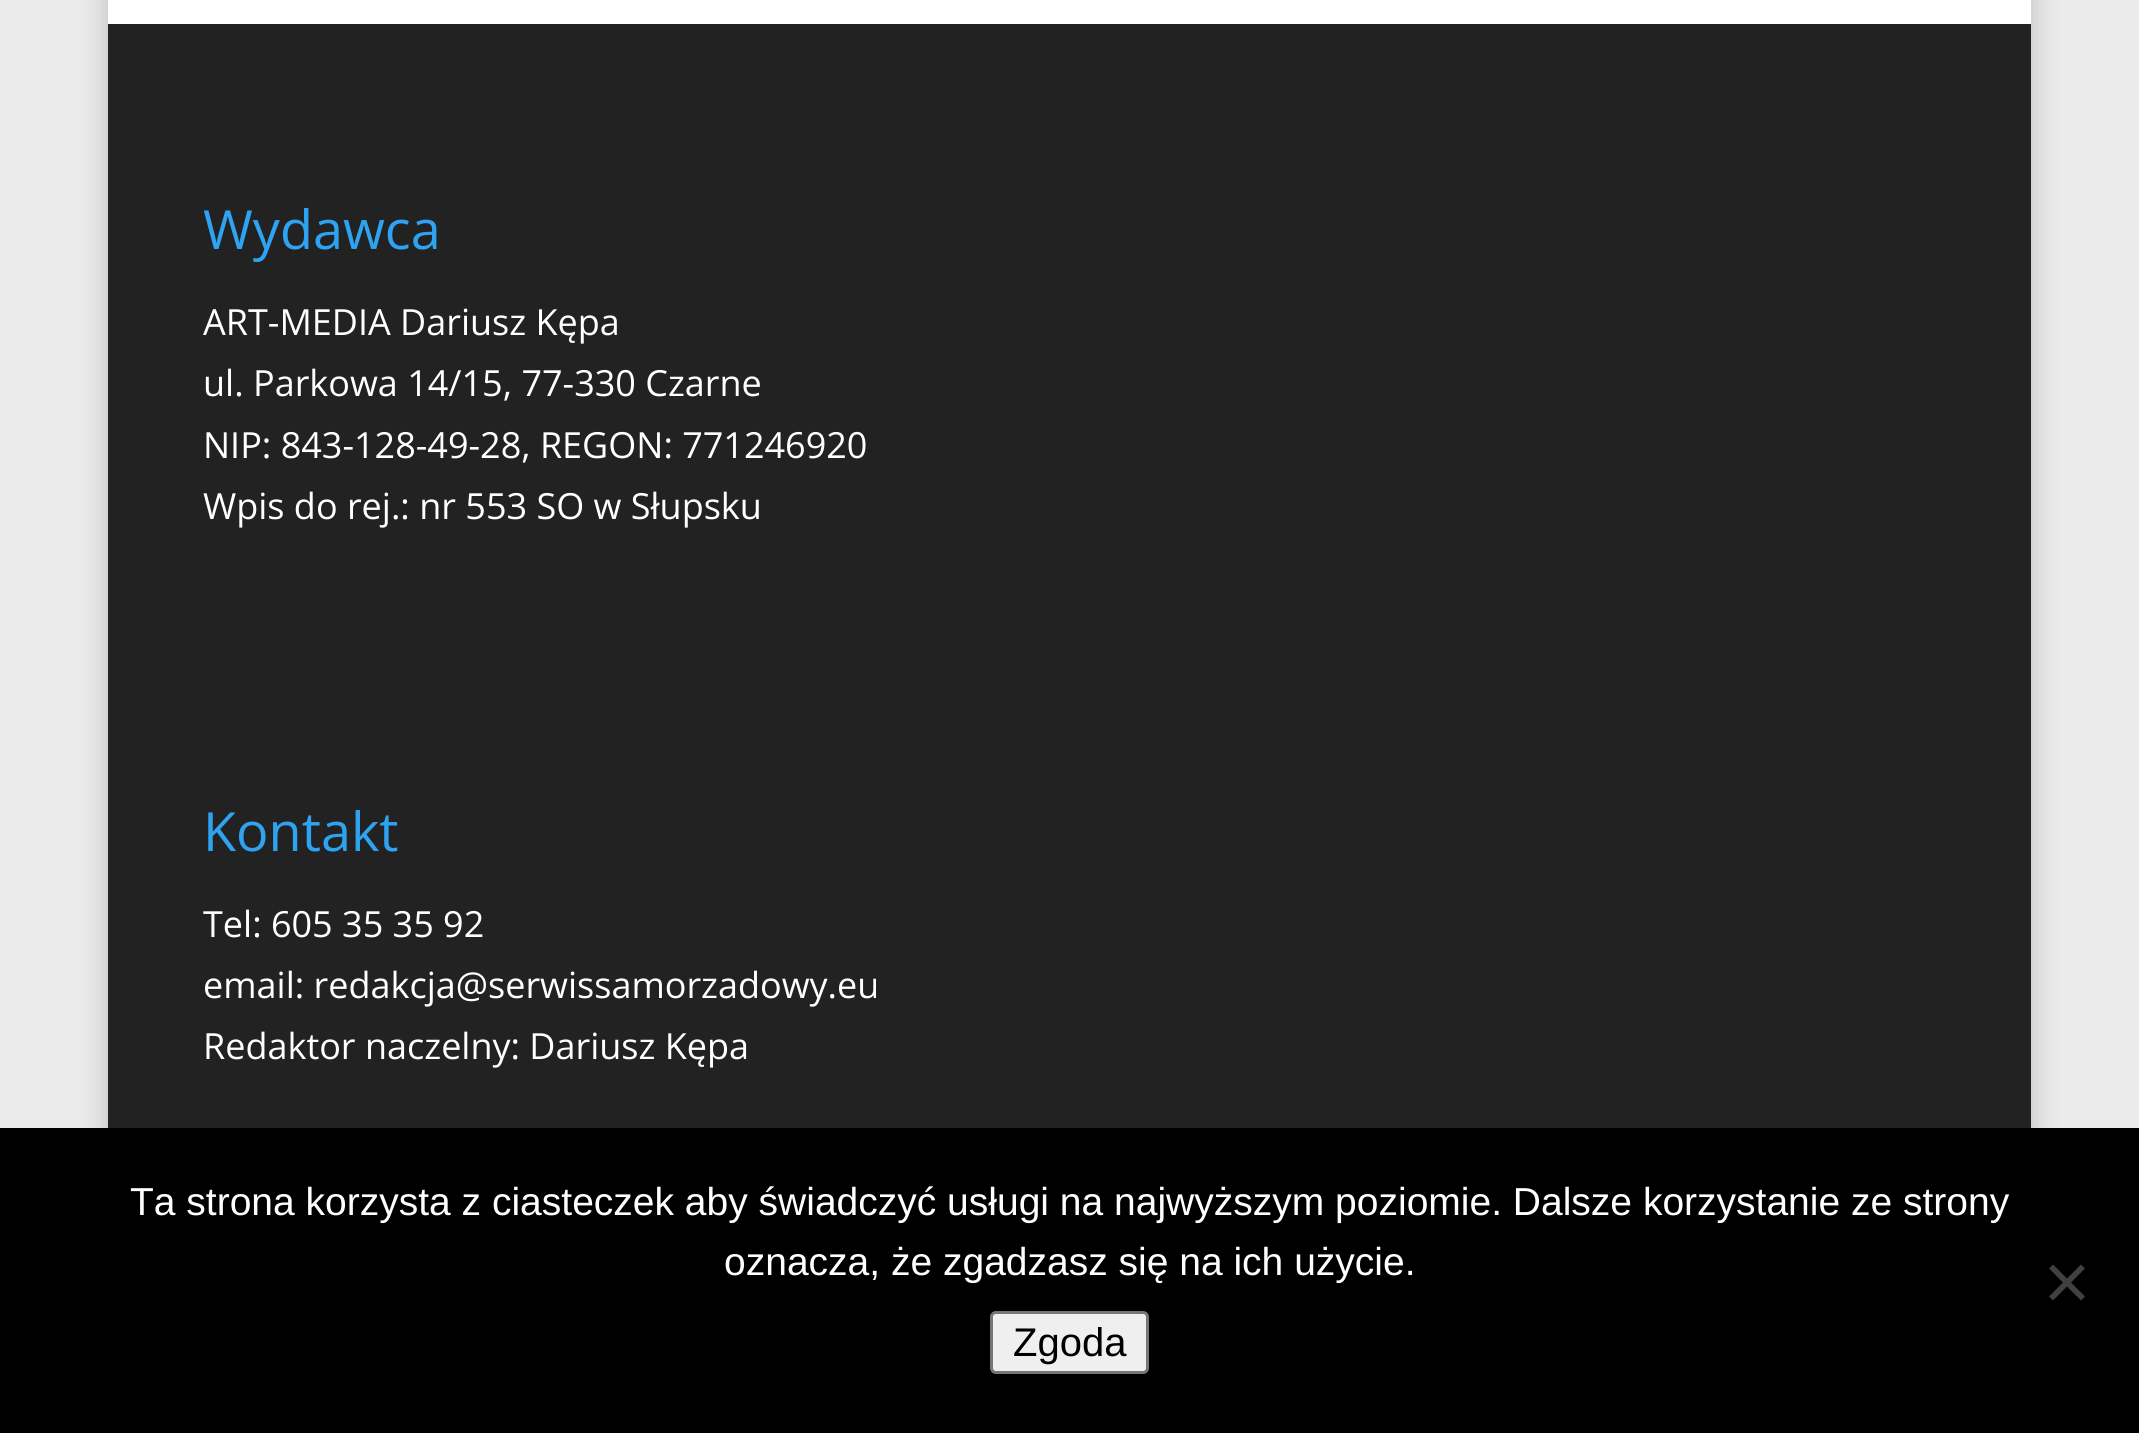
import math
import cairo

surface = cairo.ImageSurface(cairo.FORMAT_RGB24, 2139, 1433)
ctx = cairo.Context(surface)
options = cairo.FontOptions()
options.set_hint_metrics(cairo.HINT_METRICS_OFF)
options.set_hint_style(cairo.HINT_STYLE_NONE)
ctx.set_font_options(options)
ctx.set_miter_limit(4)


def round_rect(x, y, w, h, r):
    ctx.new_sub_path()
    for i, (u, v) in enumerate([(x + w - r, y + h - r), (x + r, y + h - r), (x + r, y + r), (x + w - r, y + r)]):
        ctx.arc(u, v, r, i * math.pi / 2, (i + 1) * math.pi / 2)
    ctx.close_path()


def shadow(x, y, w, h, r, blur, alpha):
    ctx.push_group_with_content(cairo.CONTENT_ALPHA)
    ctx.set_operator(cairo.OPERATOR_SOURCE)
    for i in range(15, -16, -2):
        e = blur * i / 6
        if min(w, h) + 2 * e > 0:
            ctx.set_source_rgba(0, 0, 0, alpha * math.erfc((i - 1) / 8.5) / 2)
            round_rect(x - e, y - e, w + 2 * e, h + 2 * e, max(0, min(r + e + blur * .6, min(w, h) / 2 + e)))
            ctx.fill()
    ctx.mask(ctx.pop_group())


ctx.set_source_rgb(0.918, 0.918, 0.918)
ctx.paint()
ctx.set_source_rgb(0, 0, 0)
shadow(108, -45, 1923, 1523, 0, 15, 0.2)
ctx.set_source_rgb(1, 1, 1)
ctx.rectangle(108, 0, 1923, 24)
ctx.fill()
ctx.set_source_rgb(0.133, 0.133, 0.133)
ctx.rectangle(108, 24, 1923, 1104)
ctx.fill()
ctx.select_font_face("Open Sans")
ctx.set_font_size(54)
ctx.set_source_rgb(0.18, 0.639, 0.949)
ctx.move_to(203, 249)
ctx.show_text("Wydawca")
ctx.set_font_size(36)
ctx.set_source_rgb(1, 1, 1)
ctx.move_to(203, 335)
ctx.show_text("ART-MEDIA Dariusz Kępa")
ctx.move_to(203, 396)
ctx.show_text("ul. Parkowa 14/15, 77-330 Czarne")
ctx.move_to(203, 458)
ctx.show_text("NIP: 843-128-49-28, REGON: 771246920")
ctx.move_to(203, 519)
ctx.show_text("Wpis do rej.: nr 553 SO w Słupsku")
ctx.set_font_size(54)
ctx.set_source_rgb(0.18, 0.639, 0.949)
ctx.move_to(203, 851)
ctx.show_text("Kontakt")
ctx.set_font_size(36)
ctx.set_source_rgb(1, 1, 1)
ctx.move_to(203, 937)
ctx.show_text("Tel: 605 35 35 92")
ctx.move_to(203, 998)
ctx.show_text("email: redakcja@serwissamorzadowy.eu")
ctx.move_to(203, 1059)
ctx.show_text("Redaktor naczelny: Dariusz Kępa")
ctx.set_source_rgb(0, 0, 0)
ctx.rectangle(0, 1128, 2139, 305)
ctx.fill()
ctx.select_font_face("Liberation Sans")
ctx.set_font_size(39)
ctx.set_source_rgb(1, 1, 1)
ctx.move_to(130, 1215)
ctx.show_text("Ta strona korzysta z ciasteczek aby świadczyć usługi na najwyższym poziomie. Dalsze korzystanie ze strony")
ctx.move_to(724, 1275)
ctx.show_text("oznacza, że zgadzasz się na ich użycie.")
ctx.set_source_rgb(0.251, 0.251, 0.251)
ctx.new_path()
ctx.move_to(2081, 1264.5)
ctx.line_to(2085, 1268.5)
ctx.line_to(2053, 1300.5)
ctx.line_to(2049, 1296.5)
ctx.close_path()
ctx.fill()
ctx.new_path()
ctx.move_to(2049, 1268.5)
ctx.line_to(2053, 1264.5)
ctx.line_to(2085, 1296.5)
ctx.line_to(2081, 1300.5)
ctx.close_path()
ctx.fill()
ctx.set_source_rgb(0.937, 0.937, 0.937)
round_rect(991.5, 1312.5, 156, 60, 4.5)
ctx.fill_preserve()
ctx.set_source_rgb(0.463, 0.463, 0.463)
ctx.set_line_width(3)
ctx.stroke()
ctx.set_font_size(40)
ctx.set_source_rgb(0, 0, 0)
ctx.move_to(1013, 1356)
ctx.show_text("Zgoda")
surface.write_to_png("page.png")
